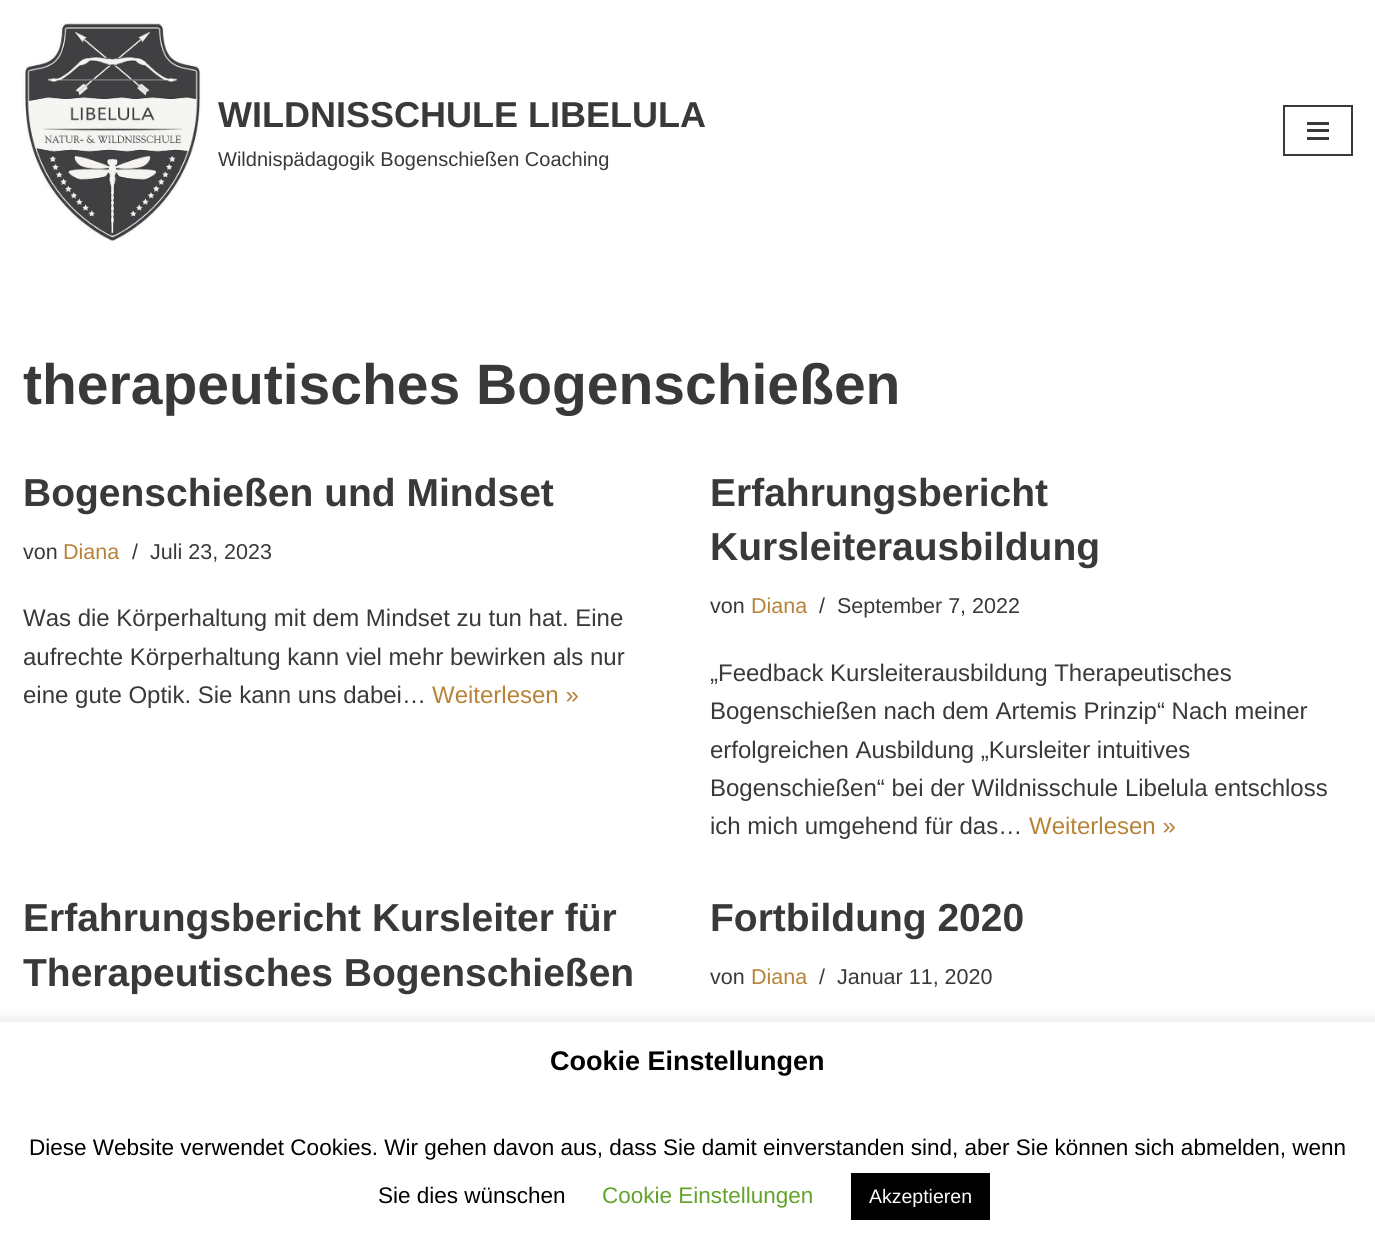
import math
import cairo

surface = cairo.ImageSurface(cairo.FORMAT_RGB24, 1375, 1245)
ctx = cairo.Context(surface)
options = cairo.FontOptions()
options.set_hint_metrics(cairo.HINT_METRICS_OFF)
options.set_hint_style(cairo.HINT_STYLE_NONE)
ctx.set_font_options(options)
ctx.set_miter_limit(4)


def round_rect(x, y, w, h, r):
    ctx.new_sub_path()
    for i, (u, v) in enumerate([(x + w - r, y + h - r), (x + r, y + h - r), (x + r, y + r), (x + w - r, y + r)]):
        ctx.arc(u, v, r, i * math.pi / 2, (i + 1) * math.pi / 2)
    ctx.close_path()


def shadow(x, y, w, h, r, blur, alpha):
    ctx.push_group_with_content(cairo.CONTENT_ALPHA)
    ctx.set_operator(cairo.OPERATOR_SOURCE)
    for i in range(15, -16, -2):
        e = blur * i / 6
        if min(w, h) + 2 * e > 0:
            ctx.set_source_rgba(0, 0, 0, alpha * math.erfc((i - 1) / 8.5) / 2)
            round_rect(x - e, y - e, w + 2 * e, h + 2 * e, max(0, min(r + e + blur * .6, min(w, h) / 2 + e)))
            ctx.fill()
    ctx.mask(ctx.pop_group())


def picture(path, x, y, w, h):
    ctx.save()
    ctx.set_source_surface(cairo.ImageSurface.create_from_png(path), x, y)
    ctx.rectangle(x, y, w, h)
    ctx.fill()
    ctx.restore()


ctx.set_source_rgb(1, 1, 1)
ctx.paint()
picture("img1.png", 22, 21, 180, 221)
ctx.select_font_face("Liberation Sans", cairo.FONT_SLANT_NORMAL, cairo.FONT_WEIGHT_BOLD)
ctx.set_font_size(36)
ctx.set_source_rgb(0.224, 0.224, 0.224)
ctx.move_to(218, 127)
ctx.show_text("WILDNISSCHULE LIBELULA")
ctx.select_font_face("Liberation Sans")
ctx.set_font_size(20)
ctx.move_to(218, 166)
ctx.show_text("Wildnispädagogik Bogenschießen Coaching")
ctx.rectangle(1284, 106, 68, 49)
ctx.stroke()
ctx.rectangle(1307, 122, 22, 3)
ctx.fill()
ctx.rectangle(1307, 129, 22, 3)
ctx.fill()
ctx.rectangle(1307, 137, 22, 3)
ctx.fill()
ctx.select_font_face("Liberation Sans", cairo.FONT_SLANT_NORMAL, cairo.FONT_WEIGHT_BOLD)
ctx.set_font_size(57)
ctx.move_to(23, 404)
ctx.show_text("therapeutisches Bogenschießen")
ctx.set_font_size(39)
ctx.move_to(23, 506)
ctx.show_text("Bogenschießen und Mindset")
ctx.select_font_face("Liberation Sans")
ctx.set_font_size(21.5)
ctx.move_to(23, 559)
ctx.show_text("von")
ctx.set_source_rgb(0.718, 0.514, 0.22)
ctx.move_to(63, 559)
ctx.show_text("Diana")
ctx.set_source_rgb(0.224, 0.224, 0.224)
ctx.move_to(132, 559)
ctx.show_text("/")
ctx.move_to(150, 559)
ctx.show_text("Juli 23, 2023")
ctx.set_font_size(24)
ctx.move_to(23, 626)
ctx.show_text("Was die Körperhaltung mit dem Mindset zu tun hat. Eine")
ctx.move_to(23, 665)
ctx.show_text("aufrechte Körperhaltung kann viel mehr bewirken als nur")
ctx.move_to(23, 703)
ctx.show_text("eine gute Optik. Sie kann uns dabei…")
ctx.set_source_rgb(0.718, 0.514, 0.22)
ctx.move_to(432, 703)
ctx.show_text("Weiterlesen »")
ctx.select_font_face("Liberation Sans", cairo.FONT_SLANT_NORMAL, cairo.FONT_WEIGHT_BOLD)
ctx.set_font_size(39)
ctx.set_source_rgb(0.224, 0.224, 0.224)
ctx.move_to(710, 506)
ctx.show_text("Erfahrungsbericht")
ctx.move_to(710, 560)
ctx.show_text("Kursleiterausbildung")
ctx.select_font_face("Liberation Sans")
ctx.set_font_size(21.5)
ctx.move_to(710, 613)
ctx.show_text("von")
ctx.set_source_rgb(0.718, 0.514, 0.22)
ctx.move_to(751, 613)
ctx.show_text("Diana")
ctx.set_source_rgb(0.224, 0.224, 0.224)
ctx.move_to(819, 613)
ctx.show_text("/")
ctx.move_to(837, 613)
ctx.show_text("September 7, 2022")
ctx.set_font_size(24)
ctx.move_to(710, 681)
ctx.show_text("„Feedback Kursleiterausbildung Therapeutisches")
ctx.move_to(710, 719)
ctx.show_text("Bogenschießen nach dem Artemis Prinzip“ Nach meiner")
ctx.move_to(710, 758)
ctx.show_text("erfolgreichen Ausbildung „Kursleiter intuitives")
ctx.move_to(710, 796)
ctx.show_text("Bogenschießen“ bei der Wildnisschule Libelula entschloss")
ctx.move_to(710, 834)
ctx.show_text("ich mich umgehend für das…")
ctx.set_source_rgb(0.718, 0.514, 0.22)
ctx.move_to(1029, 834)
ctx.show_text("Weiterlesen »")
ctx.select_font_face("Liberation Sans", cairo.FONT_SLANT_NORMAL, cairo.FONT_WEIGHT_BOLD)
ctx.set_font_size(39)
ctx.set_source_rgb(0.224, 0.224, 0.224)
ctx.move_to(23, 931)
ctx.show_text("Erfahrungsbericht Kursleiter für")
ctx.save()
ctx.rectangle(23, 891, 643, 342)
ctx.clip()
ctx.move_to(23, 986)
ctx.show_text("Therapeutisches Bogenschießen")
ctx.restore()
ctx.move_to(710, 931)
ctx.show_text("Fortbildung 2020")
ctx.select_font_face("Liberation Sans")
ctx.set_font_size(21.5)
ctx.move_to(710, 984)
ctx.show_text("von")
ctx.set_source_rgb(0.718, 0.514, 0.22)
ctx.move_to(751, 984)
ctx.show_text("Diana")
ctx.set_source_rgb(0.224, 0.224, 0.224)
ctx.move_to(819, 984)
ctx.show_text("/")
ctx.move_to(837, 984)
ctx.show_text("Januar 11, 2020")
ctx.set_source_rgb(0.675, 0.671, 0.671)
shadow(0, 1020, 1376, 224, 0, 7.5, 0.3)
ctx.set_source_rgb(1, 1, 1)
ctx.rectangle(0, 1022, 1375, 223)
ctx.fill()
ctx.select_font_face("Liberation Sans", cairo.FONT_SLANT_NORMAL, cairo.FONT_WEIGHT_BOLD)
ctx.set_font_size(27)
ctx.set_source_rgb(0, 0, 0)
ctx.move_to(550, 1070)
ctx.show_text("Cookie Einstellungen")
ctx.select_font_face("Liberation Sans")
ctx.set_font_size(22.5)
ctx.move_to(29, 1155)
ctx.show_text("Diese Website verwendet Cookies. Wir gehen davon aus, dass Sie damit einverstanden sind, aber Sie können sich abmelden, wenn")
ctx.move_to(378, 1203)
ctx.show_text("Sie dies wünschen")
ctx.set_source_rgb(0.384, 0.639, 0.161)
ctx.move_to(602, 1203)
ctx.show_text("Cookie Einstellungen")
ctx.set_source_rgb(0, 0, 0)
ctx.rectangle(851, 1173, 139, 47)
ctx.fill()
ctx.set_font_size(19.5)
ctx.set_source_rgb(1, 1, 1)
ctx.move_to(869, 1203)
ctx.show_text("Akzeptieren")
surface.write_to_png("page.png")
